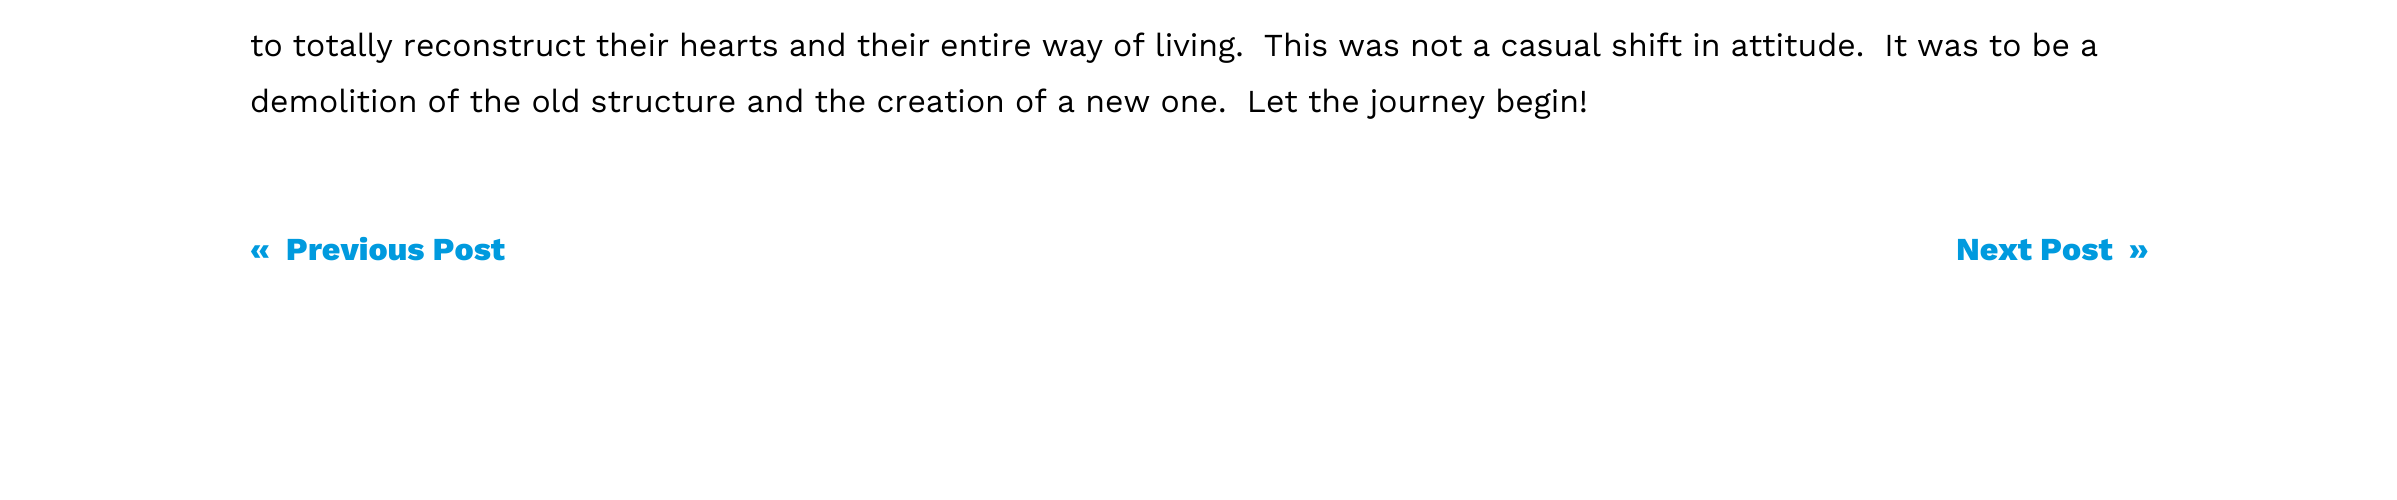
import math
import cairo

surface = cairo.ImageSurface(cairo.FORMAT_RGB24, 2397, 500)
ctx = cairo.Context(surface)
options = cairo.FontOptions()
options.set_hint_metrics(cairo.HINT_METRICS_OFF)
options.set_hint_style(cairo.HINT_STYLE_NONE)
ctx.set_font_options(options)
ctx.set_miter_limit(4)


def spaced_text(x, y, s, letter, word):
    ctx.move_to(x, y)
    for ch in s:
        ctx.show_text(ch)
        ctx.rel_move_to(letter + word * (ch == ' '), 0)


ctx.set_source_rgb(1, 1, 1)
ctx.paint()
ctx.select_font_face("Work Sans")
ctx.set_font_size(32)
ctx.set_source_rgb(0, 0, 0)
spaced_text(250, 56, "to totally reconstruct their hearts and their entire way of living.  This was not a casual shift in attitude.  It was to be a", 0, -0.9)
spaced_text(250, 112, "demolition of the old structure and the creation of a new one.  Let the journey begin!", 0, -0.75)
ctx.select_font_face("Work Sans ExtraBold")
ctx.set_source_rgb(0, 0.604, 0.871)
spaced_text(250, 260, "«  Previous Post", 0, -0.5)
spaced_text(1956, 260, "Next Post  »", 0, -0.5)
surface.write_to_png("page.png")
